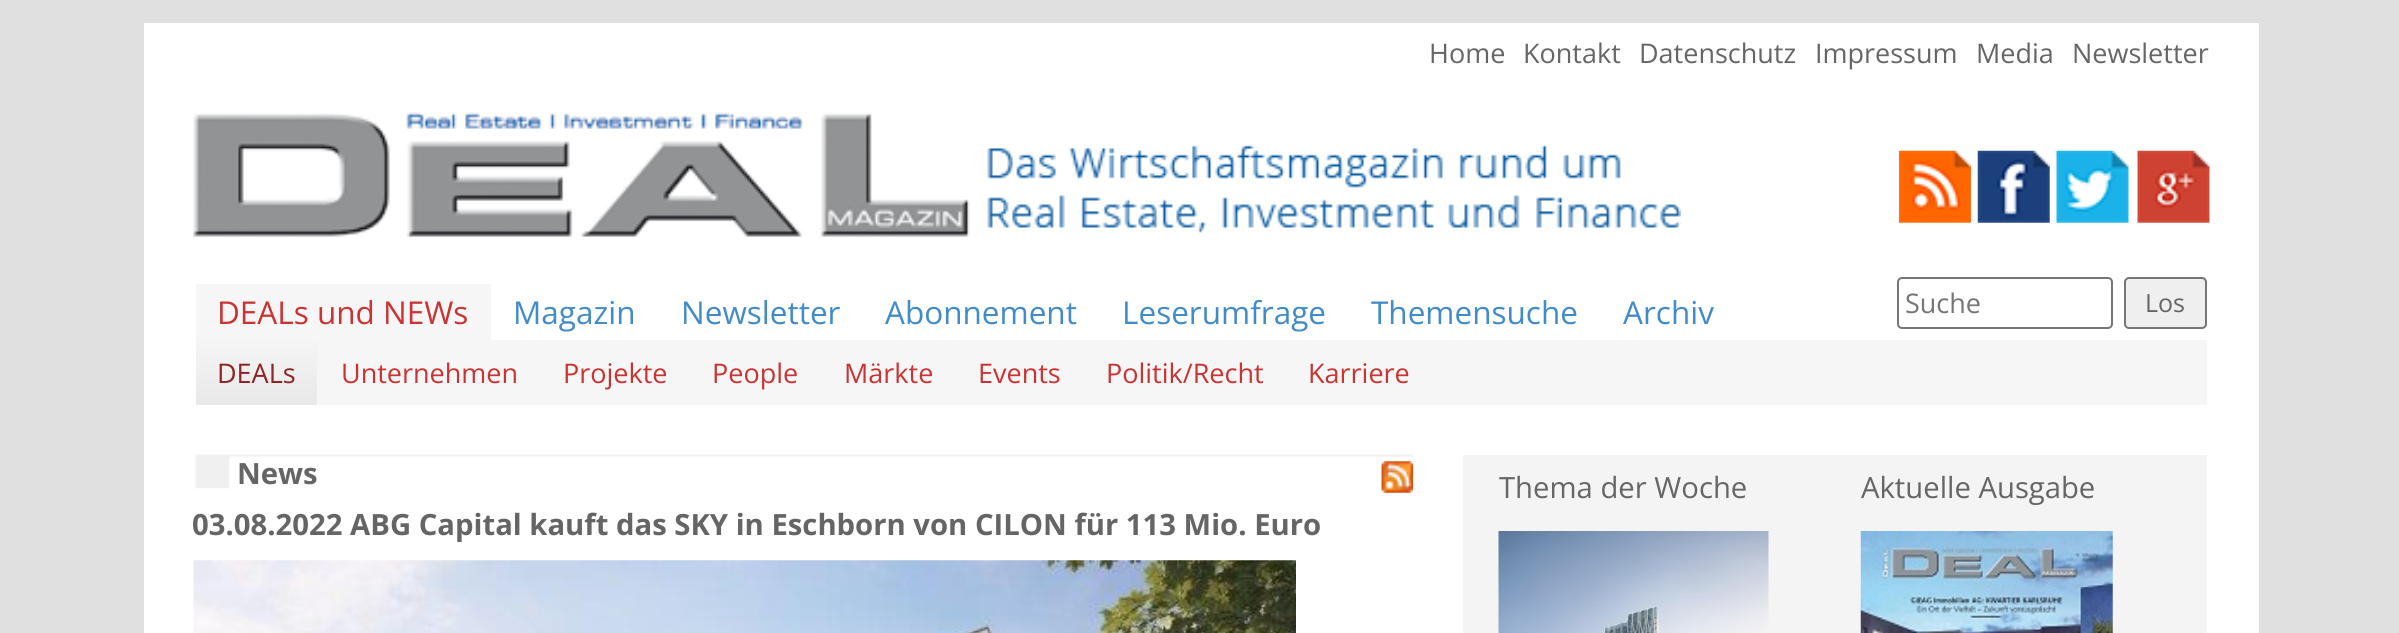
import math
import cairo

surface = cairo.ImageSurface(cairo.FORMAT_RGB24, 2399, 633)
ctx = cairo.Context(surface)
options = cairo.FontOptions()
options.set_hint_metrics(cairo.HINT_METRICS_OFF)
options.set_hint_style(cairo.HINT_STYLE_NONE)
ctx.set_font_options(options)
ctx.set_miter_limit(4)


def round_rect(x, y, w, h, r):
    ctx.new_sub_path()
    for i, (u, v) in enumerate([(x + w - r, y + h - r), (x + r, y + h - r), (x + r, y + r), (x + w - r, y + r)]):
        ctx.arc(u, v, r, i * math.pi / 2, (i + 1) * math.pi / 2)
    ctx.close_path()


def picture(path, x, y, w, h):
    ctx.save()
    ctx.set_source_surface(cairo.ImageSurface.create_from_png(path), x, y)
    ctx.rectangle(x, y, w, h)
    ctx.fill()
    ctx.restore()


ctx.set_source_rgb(0.878, 0.878, 0.878)
ctx.paint()
ctx.set_source_rgb(1, 1, 1)
ctx.rectangle(144, 23, 2115, 610)
ctx.fill()
ctx.select_font_face("Open Sans")
ctx.set_font_size(27)
ctx.set_source_rgb(0.396, 0.396, 0.396)
ctx.move_to(1429, 63)
ctx.show_text("Home")
ctx.move_to(1523, 63)
ctx.show_text("Kontakt")
ctx.move_to(1639, 63)
ctx.show_text("Datenschutz")
ctx.move_to(1815, 63)
ctx.show_text("Impressum")
ctx.move_to(1976, 63)
ctx.show_text("Media")
ctx.move_to(2072, 63)
ctx.show_text("Newsletter")
picture("img1.png", 193, 112, 1488, 125)
picture("img2.png", 1899, 150, 72, 73)
picture("img3.png", 1977, 150, 73, 73)
picture("img4.png", 2056, 150, 73, 73)
picture("img5.png", 2137, 150, 73, 73)
ctx.set_font_size(31.5)
ctx.set_source_rgb(0.259, 0.545, 0.792)
ctx.move_to(1122, 324)
ctx.show_text("Leserumfrage")
ctx.set_source_rgb(0.961, 0.961, 0.961)
ctx.rectangle(196, 284, 295, 56)
ctx.fill()
ctx.set_source_rgb(0.796, 0.2, 0.2)
ctx.move_to(217, 324)
ctx.show_text("DEALs und NEWs")
ctx.set_source_rgb(0.961, 0.961, 0.961)
ctx.rectangle(317, 340, 1890, 65)
ctx.fill()
gradient = cairo.LinearGradient(257, 340, 257, 405)
gradient.add_color_stop_rgba(0, 0.961, 0.961, 0.961, 1)
gradient.add_color_stop_rgba(1, 0.91, 0.91, 0.91, 1)
ctx.set_source(gradient)
ctx.rectangle(196, 340, 121, 65)
ctx.fill()
ctx.set_font_size(27)
ctx.set_source_rgb(0.557, 0.141, 0.141)
ctx.move_to(217, 383)
ctx.show_text("DEALs")
ctx.set_source_rgb(0.796, 0.2, 0.2)
ctx.move_to(341, 383)
ctx.show_text("Unternehmen")
ctx.move_to(563, 383)
ctx.show_text("Projekte")
ctx.move_to(712, 383)
ctx.show_text("People")
ctx.move_to(844, 383)
ctx.show_text("Märkte")
ctx.move_to(978, 383)
ctx.show_text("Events")
ctx.move_to(1106, 383)
ctx.show_text("Politik/Recht")
ctx.move_to(1308, 383)
ctx.show_text("Karriere")
ctx.set_font_size(31.5)
ctx.set_source_rgb(0.259, 0.545, 0.792)
ctx.move_to(513, 324)
ctx.show_text("Magazin")
ctx.move_to(681, 324)
ctx.show_text("Newsletter")
ctx.move_to(885, 324)
ctx.show_text("Abonnement")
ctx.move_to(1371, 324)
ctx.show_text("Themensuche")
ctx.move_to(1623, 324)
ctx.show_text("Archiv")
round_rect(1898, 278, 214, 50, 4)
ctx.set_source_rgb(0.463, 0.463, 0.463)
ctx.stroke()
ctx.set_font_size(27)
ctx.set_source_rgb(0.459, 0.459, 0.459)
ctx.move_to(1905, 313)
ctx.show_text("Suche")
ctx.set_source_rgb(0.937, 0.937, 0.937)
round_rect(2125, 278, 81, 50, 4)
ctx.fill_preserve()
ctx.set_source_rgb(0.463, 0.463, 0.463)
ctx.stroke()
ctx.set_font_size(25)
ctx.set_source_rgb(0.396, 0.396, 0.396)
ctx.move_to(2145, 312)
ctx.show_text("Los")
picture("img6.png", 194, 454, 1219, 35)
ctx.select_font_face("Open Sans", cairo.FONT_SLANT_NORMAL, cairo.FONT_WEIGHT_BOLD)
ctx.set_font_size(29.25)
ctx.move_to(237, 484)
ctx.show_text("News")
picture("img7.png", 1381, 461, 32, 32)
ctx.move_to(192, 535)
ctx.show_text("03.08.2022 ABG Capital kauft das SKY in Eschborn von CILON für 113 Mio. Euro")
picture("img8.png", 193, 560, 1103, 73)
ctx.set_source_rgb(0.957, 0.957, 0.957)
ctx.rectangle(1463, 455, 744, 178)
ctx.fill()
ctx.select_font_face("Open Sans")
ctx.set_source_rgb(0.396, 0.396, 0.396)
ctx.move_to(1499, 498)
ctx.show_text("Thema der Woche")
picture("img9.png", 1498, 531, 271, 102)
ctx.move_to(1861, 498)
ctx.show_text("Aktuelle Ausgabe")
picture("img10.png", 1860, 531, 253, 102)
surface.write_to_png("page.png")
